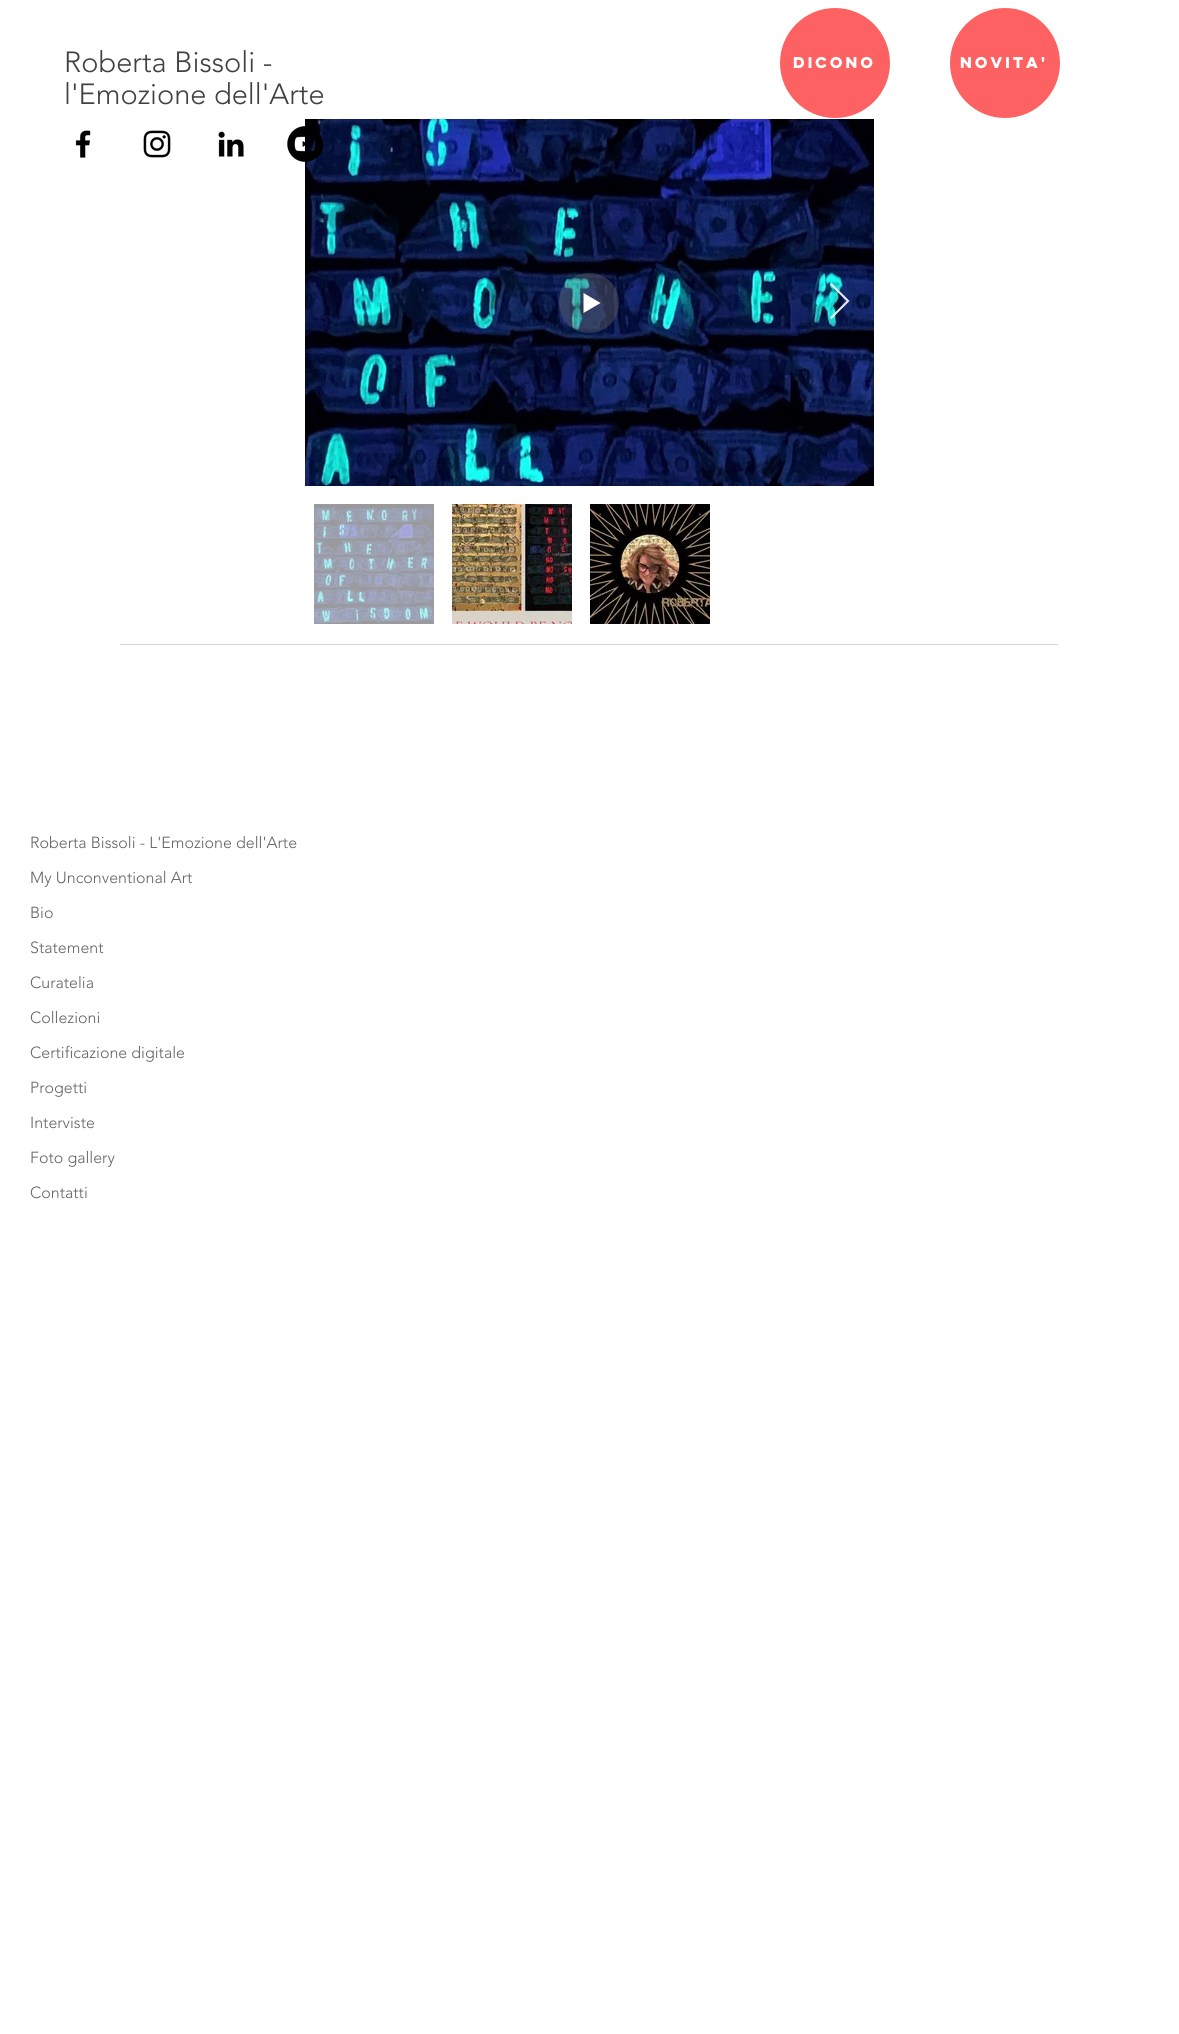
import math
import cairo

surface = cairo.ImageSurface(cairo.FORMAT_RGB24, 1179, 2034)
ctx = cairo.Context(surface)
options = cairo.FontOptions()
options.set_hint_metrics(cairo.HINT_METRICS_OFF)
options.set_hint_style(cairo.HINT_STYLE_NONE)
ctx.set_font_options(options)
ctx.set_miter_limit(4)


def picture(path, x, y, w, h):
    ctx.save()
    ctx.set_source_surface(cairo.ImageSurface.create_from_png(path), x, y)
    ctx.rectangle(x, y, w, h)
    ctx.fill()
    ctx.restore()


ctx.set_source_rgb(1, 1, 1)
ctx.paint()
ctx.select_font_face("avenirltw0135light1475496 Light")
ctx.set_font_size(29)
ctx.set_source_rgb(0.255, 0.255, 0.255)
ctx.move_to(64, 72)
ctx.show_text("Roberta Bissoli -")
ctx.move_to(64, 104)
ctx.show_text("l'Emozione dell'Arte")
picture("img1.png", 75, 130, 16, 28)
picture("img2.png", 143, 130, 28, 28)
picture("img3.png", 218, 131, 26, 26)
picture("img5.png", 305, 119, 569, 367)
picture("img4.png", 287, 126, 36, 36)
ctx.set_source_rgb(0.996, 0.38, 0.38)
ctx.arc(835, 63, 55, 0, 2 * math.pi)
ctx.fill()
ctx.select_font_face("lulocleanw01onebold", cairo.FONT_SLANT_NORMAL, cairo.FONT_WEIGHT_BOLD)
ctx.set_font_size(14)
ctx.set_source_rgb(1, 1, 1)
ctx.move_to(793, 68)
ctx.show_text("DICONO")
ctx.set_source_rgb(0.996, 0.38, 0.38)
ctx.new_path()
ctx.arc(1005, 63, 55, 0, 2 * math.pi)
ctx.fill()
ctx.set_source_rgb(1, 1, 1)
ctx.move_to(960, 68)
ctx.show_text("NOVITA'")
ctx.set_source_rgba(0.388, 0.388, 0.388, 0.42)
ctx.set_fill_rule(cairo.FILL_RULE_EVEN_ODD)
ctx.new_path()
ctx.move_to(589, 273)
ctx.curve_to(606, 273, 619, 286, 619, 303)
ctx.curve_to(619, 320, 606, 333, 589, 333)
ctx.curve_to(572, 333, 559, 320, 559, 303)
ctx.curve_to(559, 286, 572, 273, 589, 273)
ctx.close_path()
ctx.fill()
ctx.set_source_rgb(1, 1, 1)
ctx.set_fill_rule(cairo.FILL_RULE_WINDING)
ctx.new_path()
ctx.move_to(600.5, 303)
ctx.line_to(583.5, 313)
ctx.line_to(583.5, 293)
ctx.close_path()
ctx.fill()
ctx.set_source_rgba(1, 1, 1, 0.9)
ctx.new_path()
ctx.move_to(830, 284.5)
ctx.line_to(831.5, 283)
ctx.line_to(849.5, 301)
ctx.line_to(831.5, 319)
ctx.line_to(830, 317.5)
ctx.line_to(846.5, 301)
ctx.close_path()
ctx.fill()
picture("img6.png", 314, 504, 120, 120)
picture("img7.png", 452, 504, 120, 120)
picture("img8.png", 590, 504, 120, 120)
ctx.set_source_rgb(0.839, 0.839, 0.831)
ctx.rectangle(120, 644, 938, 1)
ctx.fill()
ctx.select_font_face("avenirltw0135light1475496 Light")
ctx.set_font_size(16)
ctx.set_source_rgb(0.388, 0.388, 0.388)
ctx.move_to(30, 848)
ctx.show_text("Roberta Bissoli - L'Emozione dell'Arte")
ctx.move_to(30, 883)
ctx.show_text("My Unconventional Art")
ctx.move_to(30, 918)
ctx.show_text("Bio")
ctx.move_to(30, 953)
ctx.show_text("Statement")
ctx.move_to(30, 988)
ctx.show_text("Curatelia")
ctx.move_to(30, 1023)
ctx.show_text("Collezioni")
ctx.move_to(30, 1058)
ctx.show_text("Certificazione digitale")
ctx.move_to(30, 1093)
ctx.show_text("Progetti")
ctx.move_to(30, 1128)
ctx.show_text("Interviste")
ctx.move_to(30, 1163)
ctx.show_text("Foto gallery")
ctx.move_to(30, 1198)
ctx.show_text("Contatti")
surface.write_to_png("page.png")
